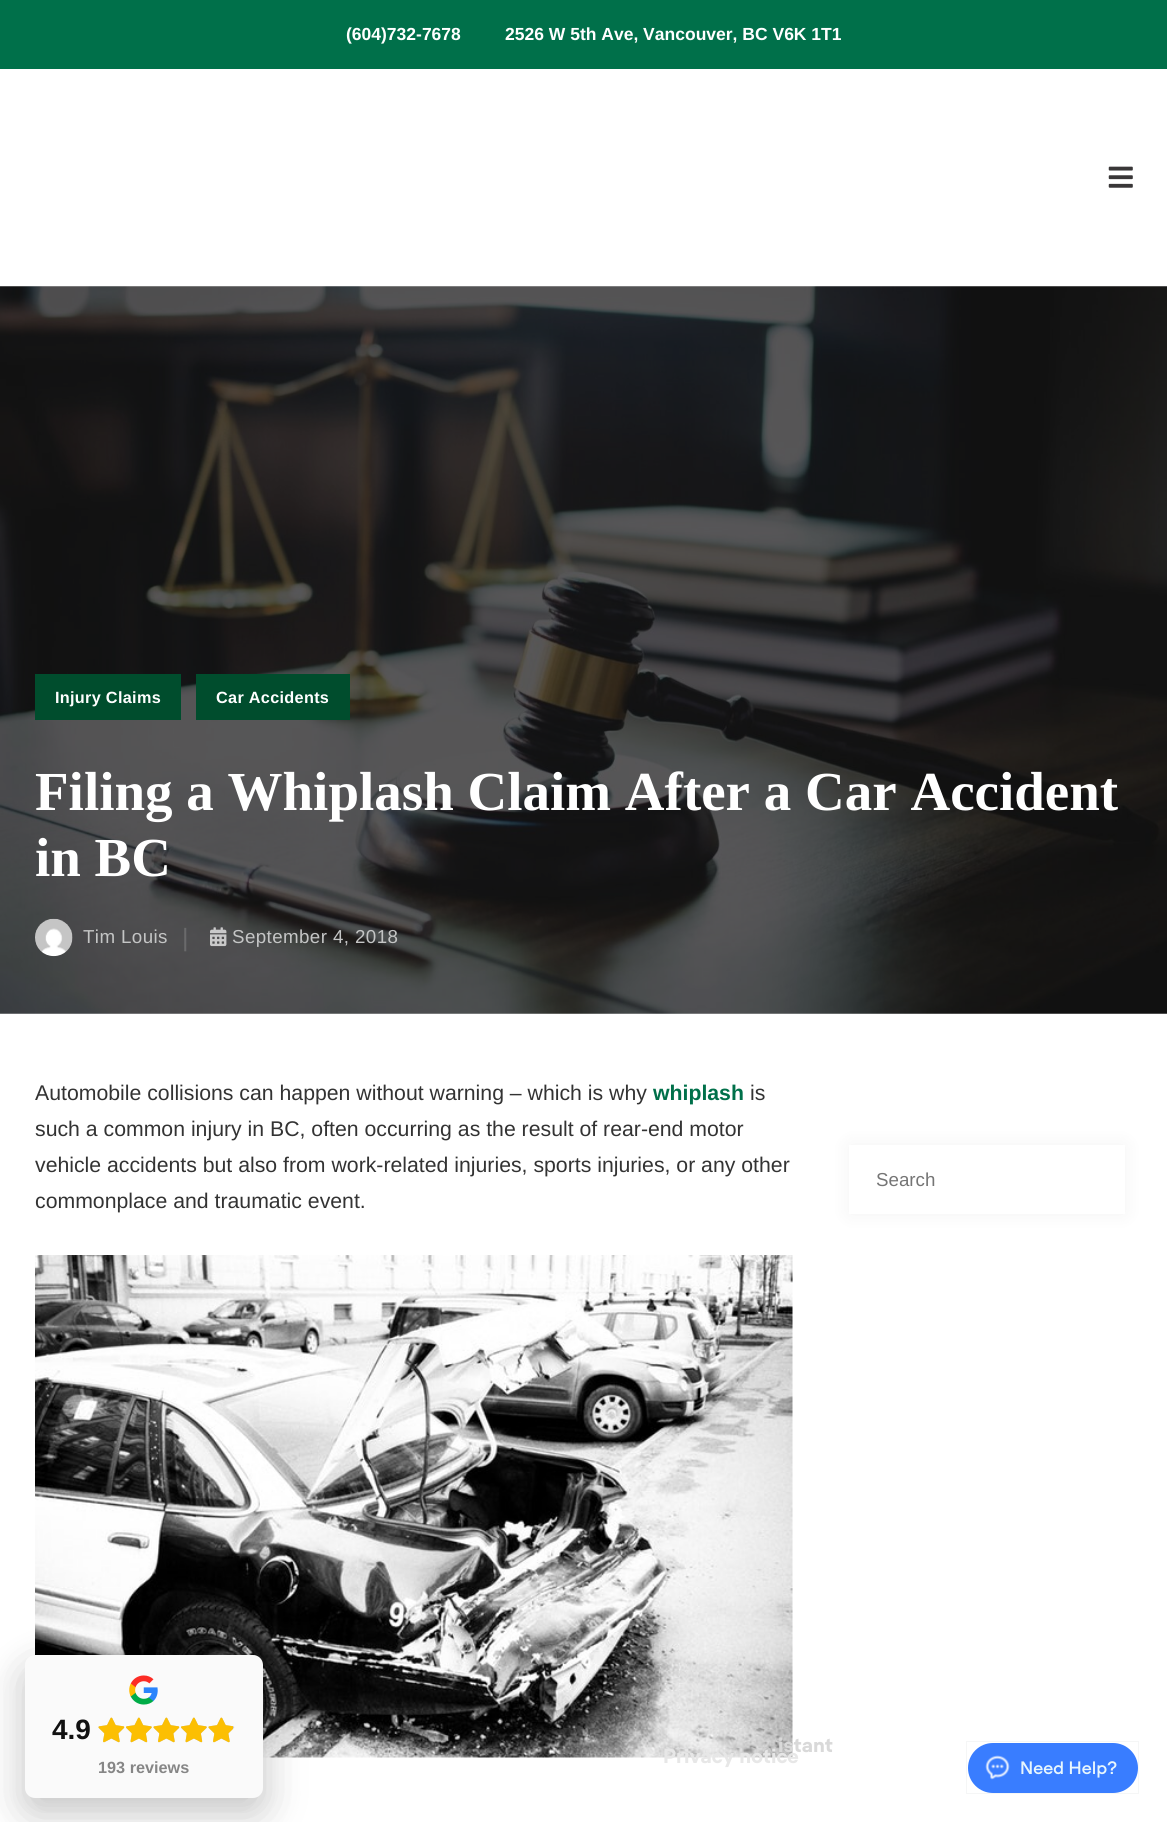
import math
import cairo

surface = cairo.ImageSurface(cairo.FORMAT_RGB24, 1167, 1822)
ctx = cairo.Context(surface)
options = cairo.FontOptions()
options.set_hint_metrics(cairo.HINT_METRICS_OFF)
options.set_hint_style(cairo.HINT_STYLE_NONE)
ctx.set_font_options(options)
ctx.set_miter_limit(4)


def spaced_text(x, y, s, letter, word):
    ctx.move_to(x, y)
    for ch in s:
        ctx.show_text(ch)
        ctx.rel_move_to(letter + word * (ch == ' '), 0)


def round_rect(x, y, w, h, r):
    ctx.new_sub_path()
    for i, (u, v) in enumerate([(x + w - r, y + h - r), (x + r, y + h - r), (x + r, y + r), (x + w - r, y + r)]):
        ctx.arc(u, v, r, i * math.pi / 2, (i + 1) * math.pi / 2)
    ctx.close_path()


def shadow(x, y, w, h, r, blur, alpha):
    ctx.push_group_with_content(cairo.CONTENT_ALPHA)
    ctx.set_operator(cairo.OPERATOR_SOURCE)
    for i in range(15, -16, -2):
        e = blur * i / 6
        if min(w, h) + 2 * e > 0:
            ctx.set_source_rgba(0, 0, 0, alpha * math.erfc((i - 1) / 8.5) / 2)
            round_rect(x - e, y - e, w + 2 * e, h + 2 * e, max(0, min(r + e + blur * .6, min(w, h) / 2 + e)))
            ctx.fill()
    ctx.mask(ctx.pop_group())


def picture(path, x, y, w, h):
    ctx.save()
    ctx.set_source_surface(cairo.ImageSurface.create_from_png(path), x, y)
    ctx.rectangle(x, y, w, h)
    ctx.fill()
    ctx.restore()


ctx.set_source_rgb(1, 1, 1)
ctx.paint()
ctx.set_source_rgb(0, 0.439, 0.29)
ctx.rectangle(0, 0, 1167, 69)
ctx.fill()
ctx.select_font_face("Liberation Sans", cairo.FONT_SLANT_NORMAL, cairo.FONT_WEIGHT_BOLD)
ctx.set_font_size(17.5)
ctx.set_source_rgb(1, 1, 1)
ctx.move_to(346, 40)
ctx.show_text("(604)732-7678")
ctx.move_to(505, 40)
ctx.show_text("2526 W 5th Ave, Vancouver, BC V6K 1T1")
picture("img1.png", 1108, 166, 25, 22)
picture("img2.png", 0, 286, 1167, 728)
ctx.set_source_rgb(0, 0.302, 0.176)
ctx.rectangle(35, 674, 146, 46)
ctx.fill()
ctx.set_font_size(16.25)
ctx.set_source_rgb(1, 1, 1)
spaced_text(55, 703, "Injury Claims", 0.3, 0)
ctx.set_source_rgb(0, 0.302, 0.176)
ctx.rectangle(196, 674, 154, 46)
ctx.fill()
ctx.set_source_rgb(1, 1, 1)
spaced_text(216, 703, "Car Accidents", 0.3, 0)
ctx.select_font_face("Liberation Serif", cairo.FONT_SLANT_NORMAL, cairo.FONT_WEIGHT_BOLD)
ctx.set_font_size(55)
ctx.move_to(35, 810)
ctx.show_text("Filing a Whiplash Claim After a Car Accident")
ctx.move_to(35, 876)
ctx.show_text("in BC")
picture("img3.png", 35, 918, 38, 39)
ctx.select_font_face("Liberation Sans")
ctx.set_font_size(18.75)
ctx.set_source_rgb(0.769, 0.773, 0.773)
spaced_text(83, 943, "Tim Louis", 0.4, 0)
ctx.set_font_size(25)
ctx.set_source_rgb(0.416, 0.416, 0.42)
spaced_text(182, 946, "|", 0.4, 0)
picture("img4.png", 210, 927, 17, 20)
ctx.set_font_size(18.75)
ctx.set_source_rgb(0.769, 0.773, 0.773)
spaced_text(232, 943, "September 4, 2018", 0.4, 0)
ctx.set_font_size(21.25)
ctx.set_source_rgb(0.2, 0.2, 0.2)
ctx.move_to(35, 1100)
ctx.show_text("Automobile collisions can happen without warning – which is why")
ctx.select_font_face("Liberation Sans", cairo.FONT_SLANT_NORMAL, cairo.FONT_WEIGHT_BOLD)
ctx.set_source_rgb(0, 0.439, 0.29)
ctx.move_to(653, 1100)
ctx.show_text("whiplash")
ctx.select_font_face("Liberation Sans")
ctx.set_source_rgb(0.2, 0.2, 0.2)
ctx.move_to(750, 1100)
ctx.show_text("is")
ctx.move_to(35, 1136)
ctx.show_text("such a common injury in BC, often occurring as the result of rear-end motor")
ctx.move_to(35, 1172)
ctx.show_text("vehicle accidents but also from work-related injuries, sports injuries, or any other")
ctx.move_to(35, 1208)
ctx.show_text("commonplace and traumatic event.")
picture("img5.png", 35, 1255, 758, 503)
ctx.set_source_rgb(0, 0, 0)
shadow(849, 1145, 276, 69, 0, 9.5, 0.05)
ctx.set_source_rgb(1, 1, 1)
ctx.rectangle(849, 1145, 276, 69)
ctx.fill()
ctx.set_font_size(18.75)
ctx.set_source_rgb(0.459, 0.459, 0.459)
ctx.move_to(876, 1186)
ctx.show_text("Search")
ctx.set_source_rgb(0, 0, 0)
shadow(25, 1668, 238, 142, 10, 19, 0.15)
shadow(25, 1674, 238, 142, 10, 25, 0.1)
ctx.set_source_rgb(0.98, 0.98, 0.98)
round_rect(25, 1655, 238, 143, 10)
ctx.fill()
picture("img6.png", 129, 1675, 29, 30)
ctx.select_font_face("Liberation Sans", cairo.FONT_SLANT_NORMAL, cairo.FONT_WEIGHT_BOLD)
ctx.set_font_size(28)
ctx.set_source_rgb(0.067, 0.067, 0.067)
ctx.move_to(52, 1739)
ctx.show_text("4.9")
picture("img7.png", 98, 1717, 27, 26)
picture("img8.png", 98, 1717, 27, 26)
picture("img9.png", 126, 1717, 26, 26)
picture("img10.png", 126, 1717, 26, 26)
picture("img7.png", 153, 1717, 27, 26)
picture("img8.png", 153, 1717, 27, 26)
picture("img9.png", 181, 1717, 26, 26)
picture("img10.png", 181, 1717, 26, 26)
picture("img7.png", 208, 1717, 27, 26)
picture("img11.png", 208, 1717, 25, 26)
ctx.set_font_size(16.25)
ctx.set_source_rgb(0.525, 0.525, 0.525)
ctx.move_to(98, 1773)
ctx.show_text("193 reviews")
ctx.select_font_face("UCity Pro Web", cairo.FONT_SLANT_NORMAL, cairo.FONT_WEIGHT_BOLD)
ctx.set_font_size(20)
ctx.set_source_rgb(0.851, 0.851, 0.851)
ctx.move_to(778, 1752)
ctx.show_text("istant")
ctx.set_source_rgb(0.906, 0.906, 0.906)
ctx.move_to(663, 1763)
ctx.show_text("Privacy notice")
ctx.rectangle(966.5, 1741.5, 172, 52)
ctx.set_source_rgba(0.086, 0.102, 0.118, 0.04)
ctx.set_line_width(1)
ctx.stroke()
ctx.set_source_rgb(0.224, 0.49, 1)
round_rect(968, 1743, 170, 50, 25)
ctx.fill()
picture("img12.png", 985, 1755, 25, 25)
ctx.select_font_face("UCity Pro Web SemiBold")
ctx.set_font_size(17.5)
ctx.set_source_rgb(0.906, 0.961, 0.992)
ctx.move_to(1020, 1774)
ctx.show_text("Need Help?")
surface.write_to_png("page.png")
